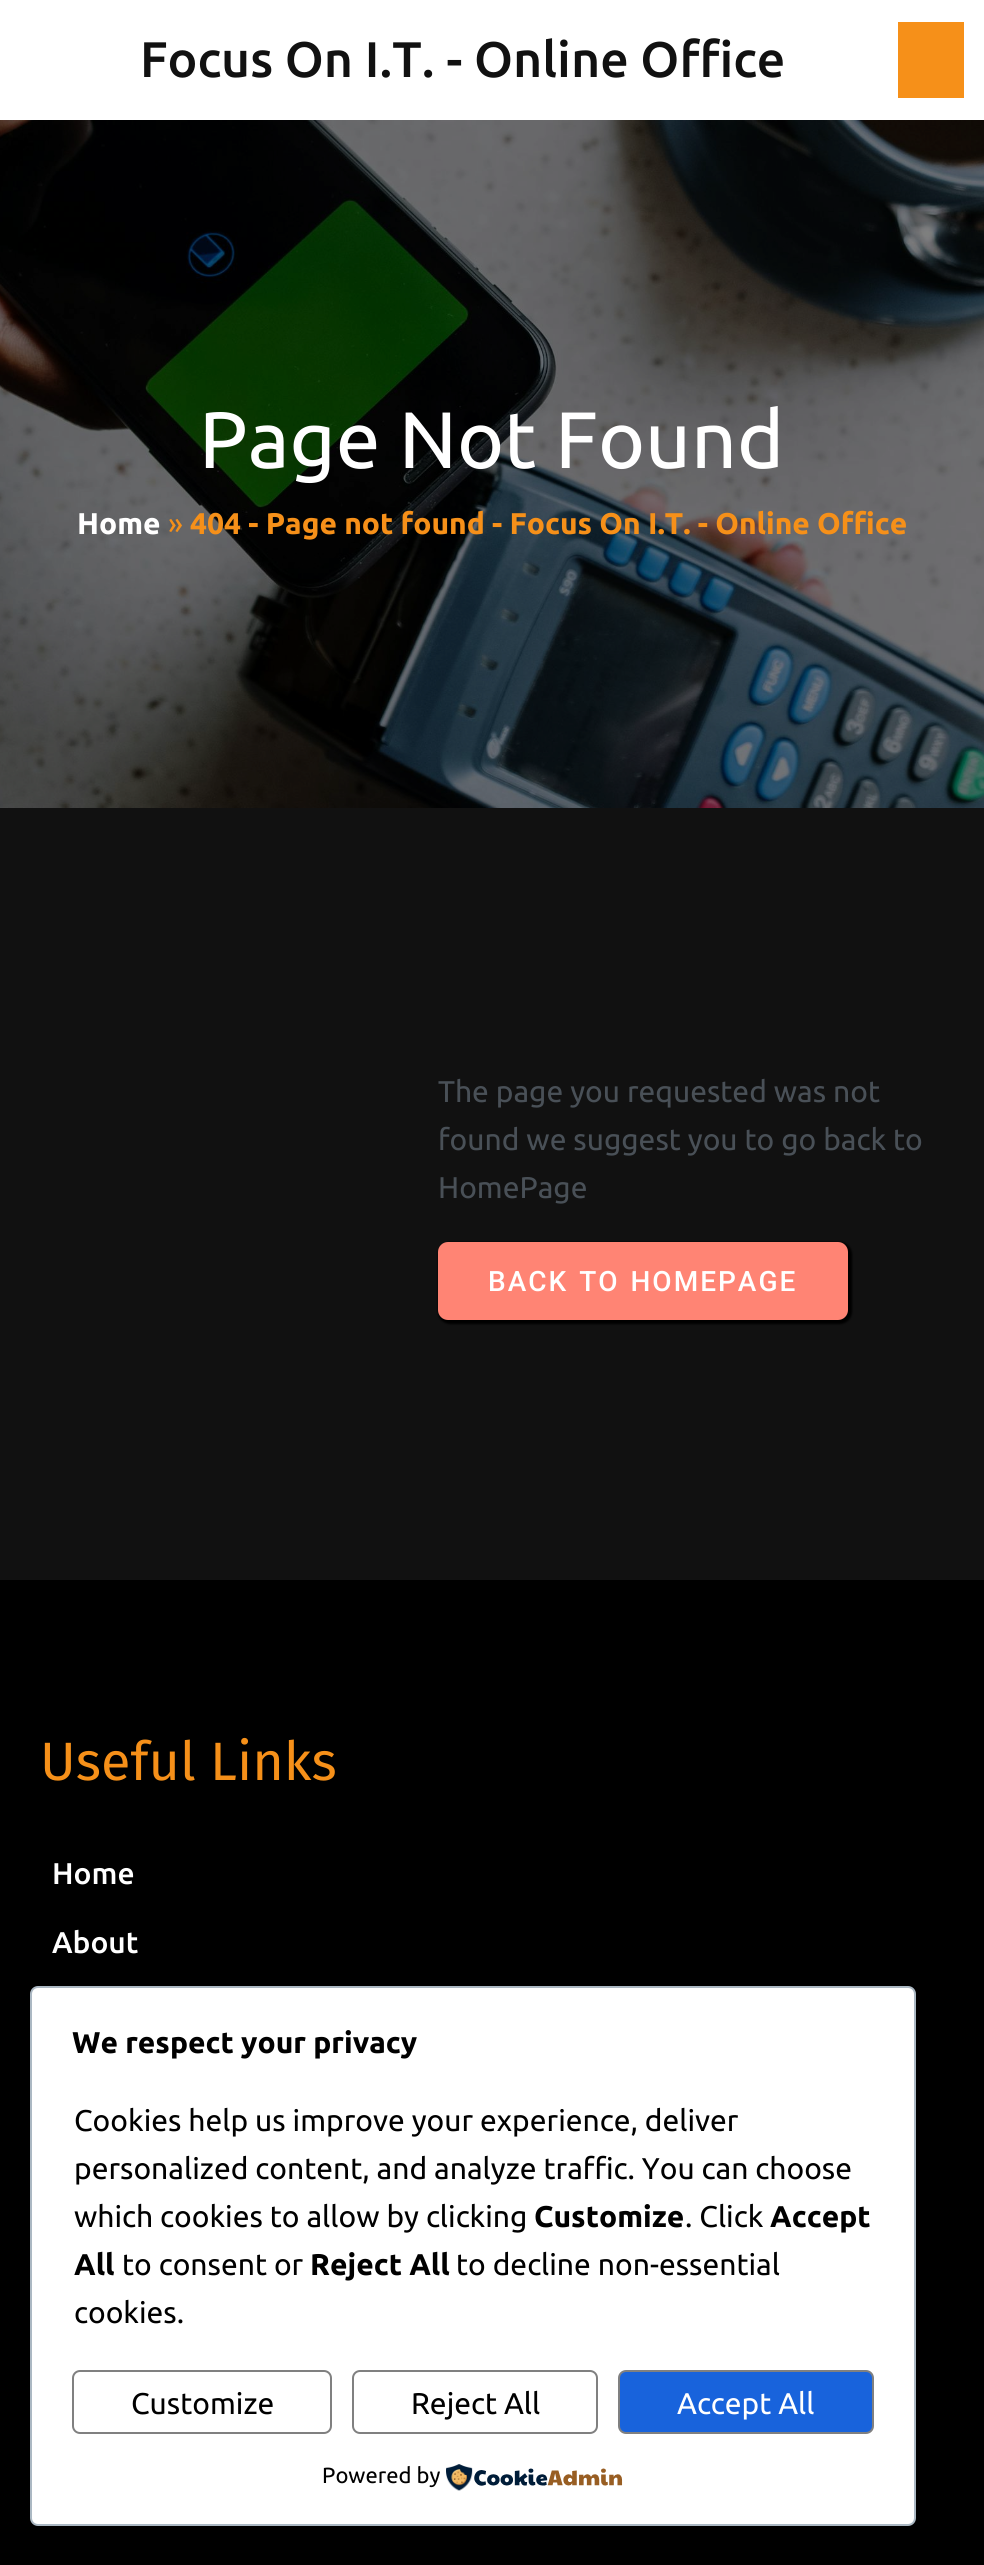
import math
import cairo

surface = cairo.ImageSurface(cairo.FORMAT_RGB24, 984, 2565)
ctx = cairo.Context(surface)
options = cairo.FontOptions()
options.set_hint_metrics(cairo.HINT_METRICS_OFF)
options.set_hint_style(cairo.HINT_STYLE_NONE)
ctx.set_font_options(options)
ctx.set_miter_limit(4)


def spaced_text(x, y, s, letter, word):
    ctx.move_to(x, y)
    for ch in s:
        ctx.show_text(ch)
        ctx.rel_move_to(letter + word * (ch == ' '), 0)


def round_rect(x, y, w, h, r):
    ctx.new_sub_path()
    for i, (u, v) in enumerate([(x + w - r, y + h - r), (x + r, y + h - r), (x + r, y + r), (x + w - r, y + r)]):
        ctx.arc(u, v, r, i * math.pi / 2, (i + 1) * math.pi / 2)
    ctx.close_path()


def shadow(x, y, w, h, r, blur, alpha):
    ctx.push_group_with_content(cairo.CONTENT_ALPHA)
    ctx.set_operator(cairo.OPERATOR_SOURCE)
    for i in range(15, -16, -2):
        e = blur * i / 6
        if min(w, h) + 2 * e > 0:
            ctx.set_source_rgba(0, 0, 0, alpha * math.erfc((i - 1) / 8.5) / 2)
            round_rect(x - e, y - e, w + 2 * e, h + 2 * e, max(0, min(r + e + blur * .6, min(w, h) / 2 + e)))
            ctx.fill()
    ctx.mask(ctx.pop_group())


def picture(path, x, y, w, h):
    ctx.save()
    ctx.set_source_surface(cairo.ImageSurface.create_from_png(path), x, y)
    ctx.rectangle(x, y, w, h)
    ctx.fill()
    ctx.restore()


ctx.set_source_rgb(0.067, 0.067, 0.067)
ctx.paint()
ctx.set_source_rgb(1, 1, 1)
ctx.rectangle(0, 0, 984, 120)
ctx.fill()
ctx.select_font_face("Ubuntu Medium")
ctx.set_font_size(50)
ctx.set_source_rgb(0.067, 0.067, 0.067)
ctx.move_to(140, 77)
ctx.show_text("Focus On I.T. - Online Office")
ctx.set_source_rgb(0.961, 0.565, 0.098)
ctx.rectangle(898, 22, 66, 76)
ctx.fill()
picture("img1.png", 0, 120, 984, 688)
ctx.select_font_face("Ubuntu")
ctx.set_font_size(80)
ctx.set_source_rgb(1, 1, 1)
ctx.move_to(199, 468)
ctx.show_text("Page Not Found")
ctx.select_font_face("Ubuntu", cairo.FONT_SLANT_NORMAL, cairo.FONT_WEIGHT_BOLD)
ctx.set_font_size(30)
ctx.move_to(77, 534)
ctx.show_text("Home")
ctx.select_font_face("Ubuntu")
ctx.set_source_rgb(0.961, 0.565, 0.098)
ctx.move_to(168, 534)
ctx.show_text("»")
ctx.select_font_face("Ubuntu", cairo.FONT_SLANT_NORMAL, cairo.FONT_WEIGHT_BOLD)
ctx.move_to(190, 534)
ctx.show_text("404 - Page not found - Focus On I.T. - Online Office")
ctx.select_font_face("Ubuntu")
ctx.set_source_rgb(0.286, 0.314, 0.341)
ctx.move_to(438, 1102)
ctx.show_text("The page you requested was not")
ctx.move_to(438, 1150)
ctx.show_text("found we suggest you to go back to")
ctx.move_to(438, 1198)
ctx.show_text("HomePage")
ctx.set_source_rgb(0, 0, 0)
shadow(438, 1242, 414, 82, 12, 1, 1)
ctx.set_source_rgb(1, 0.518, 0.455)
round_rect(438, 1242, 410, 78, 10)
ctx.fill()
ctx.select_font_face("Roboto Medium")
ctx.set_font_size(28)
ctx.set_source_rgb(1, 1, 1)
spaced_text(488, 1291, "BACK TO HOMEPAGE", 2, 2)
ctx.set_source_rgb(0, 0, 0)
ctx.rectangle(0, 1580, 984, 985)
ctx.fill()
ctx.select_font_face("Fira Sans")
ctx.set_font_size(54)
ctx.set_source_rgb(0.961, 0.565, 0.098)
ctx.move_to(40, 1780)
ctx.show_text("Useful Links")
ctx.select_font_face("Ubuntu Medium")
ctx.set_font_size(30)
ctx.set_source_rgb(1, 1, 1)
ctx.move_to(52, 1884)
ctx.show_text("Home")
ctx.move_to(52, 1953)
ctx.show_text("About")
round_rect(31, 1987, 884, 538, 7)
ctx.fill_preserve()
ctx.set_source_rgb(0.671, 0.722, 0.765)
ctx.stroke()
ctx.select_font_face("Ubuntu", cairo.FONT_SLANT_NORMAL, cairo.FONT_WEIGHT_BOLD)
ctx.set_source_rgb(0, 0, 0)
ctx.move_to(72, 2053)
ctx.show_text("We respect your privacy")
ctx.select_font_face("Ubuntu")
ctx.move_to(74, 2131)
ctx.show_text("Cookies help us improve your experience, deliver")
ctx.move_to(74, 2179)
ctx.show_text("personalized content, and analyze traffic. You can choose")
ctx.move_to(74, 2227)
ctx.show_text("which cookies to allow by clicking")
ctx.select_font_face("Ubuntu", cairo.FONT_SLANT_NORMAL, cairo.FONT_WEIGHT_BOLD)
ctx.move_to(534, 2227)
ctx.show_text("Customize")
ctx.select_font_face("Ubuntu")
ctx.move_to(685, 2227)
ctx.show_text(". Click")
ctx.select_font_face("Ubuntu", cairo.FONT_SLANT_NORMAL, cairo.FONT_WEIGHT_BOLD)
ctx.move_to(770, 2227)
ctx.show_text("Accept")
ctx.move_to(74, 2275)
ctx.show_text("All")
ctx.select_font_face("Ubuntu")
ctx.move_to(122, 2275)
ctx.show_text("to consent or")
ctx.select_font_face("Ubuntu", cairo.FONT_SLANT_NORMAL, cairo.FONT_WEIGHT_BOLD)
ctx.move_to(310, 2275)
ctx.show_text("Reject All")
ctx.select_font_face("Ubuntu")
ctx.move_to(456, 2275)
ctx.show_text("to decline non-essential")
ctx.move_to(74, 2323)
ctx.show_text("cookies.")
round_rect(73, 2371, 258, 62, 7)
ctx.set_source_rgb(0.502, 0.502, 0.502)
ctx.stroke()
ctx.set_source_rgb(0, 0, 0)
ctx.move_to(131, 2414)
ctx.show_text("Customize")
round_rect(353, 2371, 244, 62, 7)
ctx.set_source_rgb(0.502, 0.502, 0.502)
ctx.stroke()
ctx.set_source_rgb(0, 0, 0)
ctx.move_to(411, 2414)
ctx.show_text("Reject All")
ctx.set_source_rgb(0.094, 0.388, 0.863)
round_rect(619, 2371, 254, 62, 7)
ctx.fill_preserve()
ctx.set_source_rgb(0.502, 0.502, 0.502)
ctx.stroke()
ctx.set_source_rgb(1, 1, 1)
ctx.move_to(677, 2414)
ctx.show_text("Accept All")
ctx.set_font_size(22)
ctx.set_source_rgb(0, 0, 0)
ctx.move_to(322, 2483)
ctx.show_text("Powered by")
picture("img2.png", 446, 2464, 177, 27)
surface.write_to_png("page.png")
